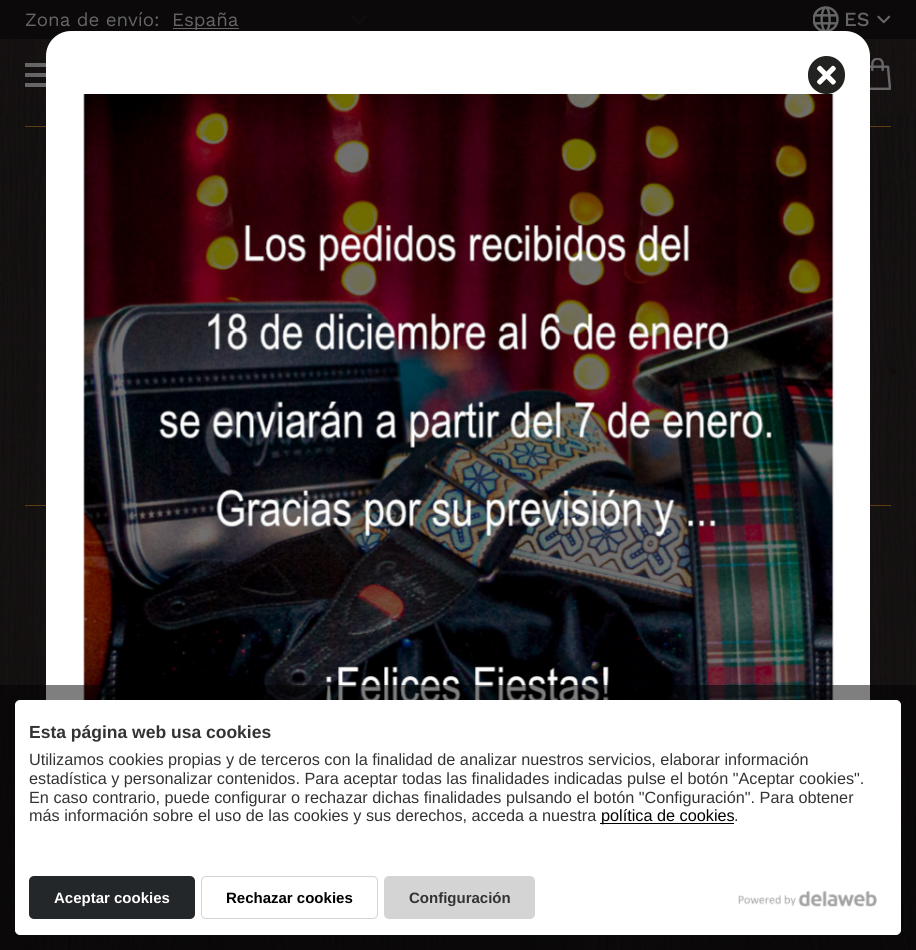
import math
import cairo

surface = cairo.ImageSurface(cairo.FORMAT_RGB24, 916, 950)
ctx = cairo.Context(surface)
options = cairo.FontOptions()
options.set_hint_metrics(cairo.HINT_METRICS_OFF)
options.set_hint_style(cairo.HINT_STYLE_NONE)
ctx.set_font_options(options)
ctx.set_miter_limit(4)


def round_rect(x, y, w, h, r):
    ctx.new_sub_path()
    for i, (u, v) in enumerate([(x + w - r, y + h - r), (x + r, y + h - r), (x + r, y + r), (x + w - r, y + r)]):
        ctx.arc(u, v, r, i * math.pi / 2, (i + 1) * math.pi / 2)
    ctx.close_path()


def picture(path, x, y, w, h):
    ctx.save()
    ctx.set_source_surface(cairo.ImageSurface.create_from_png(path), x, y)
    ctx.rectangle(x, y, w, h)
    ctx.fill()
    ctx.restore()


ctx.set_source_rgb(1, 1, 1)
ctx.paint()
picture("img8.png", 0, 113, 916, 837)
picture("img1.png", 0, 39, 916, 75)
ctx.set_source_rgb(0.043, 0.039, 0.039)
ctx.rectangle(0, 0, 916, 39)
ctx.fill()
ctx.select_font_face("Work Sans")
ctx.set_font_size(18.75)
ctx.set_source_rgb(0.4, 0.4, 0.4)
ctx.move_to(25, 26)
ctx.show_text("Zona de envío:")
picture("img2.png", 351, 15, 17, 9)
ctx.rectangle(173, 28, 66, 1)
ctx.fill()
ctx.move_to(172, 26)
ctx.show_text("España")
picture("img3.png", 813, 6, 26, 25)
ctx.select_font_face("Work Sans Medium")
ctx.set_font_size(20)
ctx.move_to(844, 26)
ctx.show_text("ES")
picture("img4.png", 877, 15, 14, 9)
ctx.rectangle(25, 73, 29, 4)
ctx.fill()
ctx.rectangle(25, 63, 29, 4)
ctx.fill()
ctx.rectangle(25, 83, 29, 4)
ctx.fill()
picture("img5.png", 870, 58, 21, 32)
ctx.set_source_rgb(0.369, 0.239, 0.055)
ctx.rectangle(25, 126, 866, 1)
ctx.fill()
ctx.rectangle(25, 505, 866, 1)
ctx.fill()
ctx.set_source_rgb(1, 1, 1)
round_rect(46, 31, 824, 888, 25)
ctx.fill()
ctx.set_source_rgb(0.133, 0.133, 0.125)
round_rect(808, 56, 37, 38, 18.5)
ctx.fill()
picture("img6.png", 817, 65, 19, 20)
picture("img7.png", 83, 94, 751, 606)
ctx.set_source_rgba(0, 0, 0, 0.5)
ctx.rectangle(0, 685, 916, 265)
ctx.fill()
ctx.set_source_rgb(1, 1, 1)
round_rect(15.5, 700.5, 885, 234, 4.5)
ctx.fill_preserve()
ctx.set_line_width(1)
ctx.stroke()
ctx.select_font_face("Liberation Sans", cairo.FONT_SLANT_NORMAL, cairo.FONT_WEIGHT_BOLD)
ctx.set_font_size(17.5)
ctx.set_source_rgb(0.2, 0.2, 0.2)
ctx.move_to(29, 738)
ctx.show_text("Esta página web usa cookies")
ctx.select_font_face("Liberation Sans")
ctx.set_font_size(16.25)
ctx.move_to(29, 765)
ctx.show_text("Utilizamos cookies propias y de terceros con la finalidad de analizar nuestros servicios, elaborar información")
ctx.move_to(29, 784)
ctx.show_text("estadística y personalizar contenidos. Para aceptar todas las finalidades indicadas pulse el botón \"Aceptar cookies\".")
ctx.move_to(29, 803)
ctx.show_text("En caso contrario, puede configurar o rechazar dichas finalidades pulsando el botón \"Configuración\". Para obtener")
ctx.move_to(29, 821)
ctx.show_text("más información sobre el uso de las cookies y sus derechos, acceda a nuestra")
ctx.set_source_rgb(0, 0, 0)
ctx.rectangle(600, 823, 134, 1)
ctx.fill()
ctx.move_to(601, 821)
ctx.show_text("política de cookies")
ctx.set_source_rgb(0.2, 0.2, 0.2)
ctx.move_to(734, 821)
ctx.show_text(".")
ctx.set_source_rgb(0.141, 0.153, 0.165)
round_rect(29, 876, 166, 43, 5)
ctx.fill()
ctx.select_font_face("Liberation Sans", cairo.FONT_SLANT_NORMAL, cairo.FONT_WEIGHT_BOLD)
ctx.set_font_size(15)
ctx.set_source_rgb(1, 1, 1)
ctx.move_to(54, 903)
ctx.show_text("Aceptar cookies")
round_rect(201.5, 876.5, 176, 42, 4.5)
ctx.set_source_rgb(0.831, 0.831, 0.831)
ctx.stroke()
ctx.set_source_rgb(0, 0, 0)
ctx.move_to(226, 903)
ctx.show_text("Rechazar cookies")
ctx.set_source_rgb(0.831, 0.831, 0.831)
round_rect(384, 876, 151, 43, 5)
ctx.fill()
ctx.set_source_rgb(0.2, 0.2, 0.2)
ctx.move_to(409, 903)
ctx.show_text("Configuración")
picture("img9.png", 738, 891, 139, 16)
surface.write_to_png("page.png")
